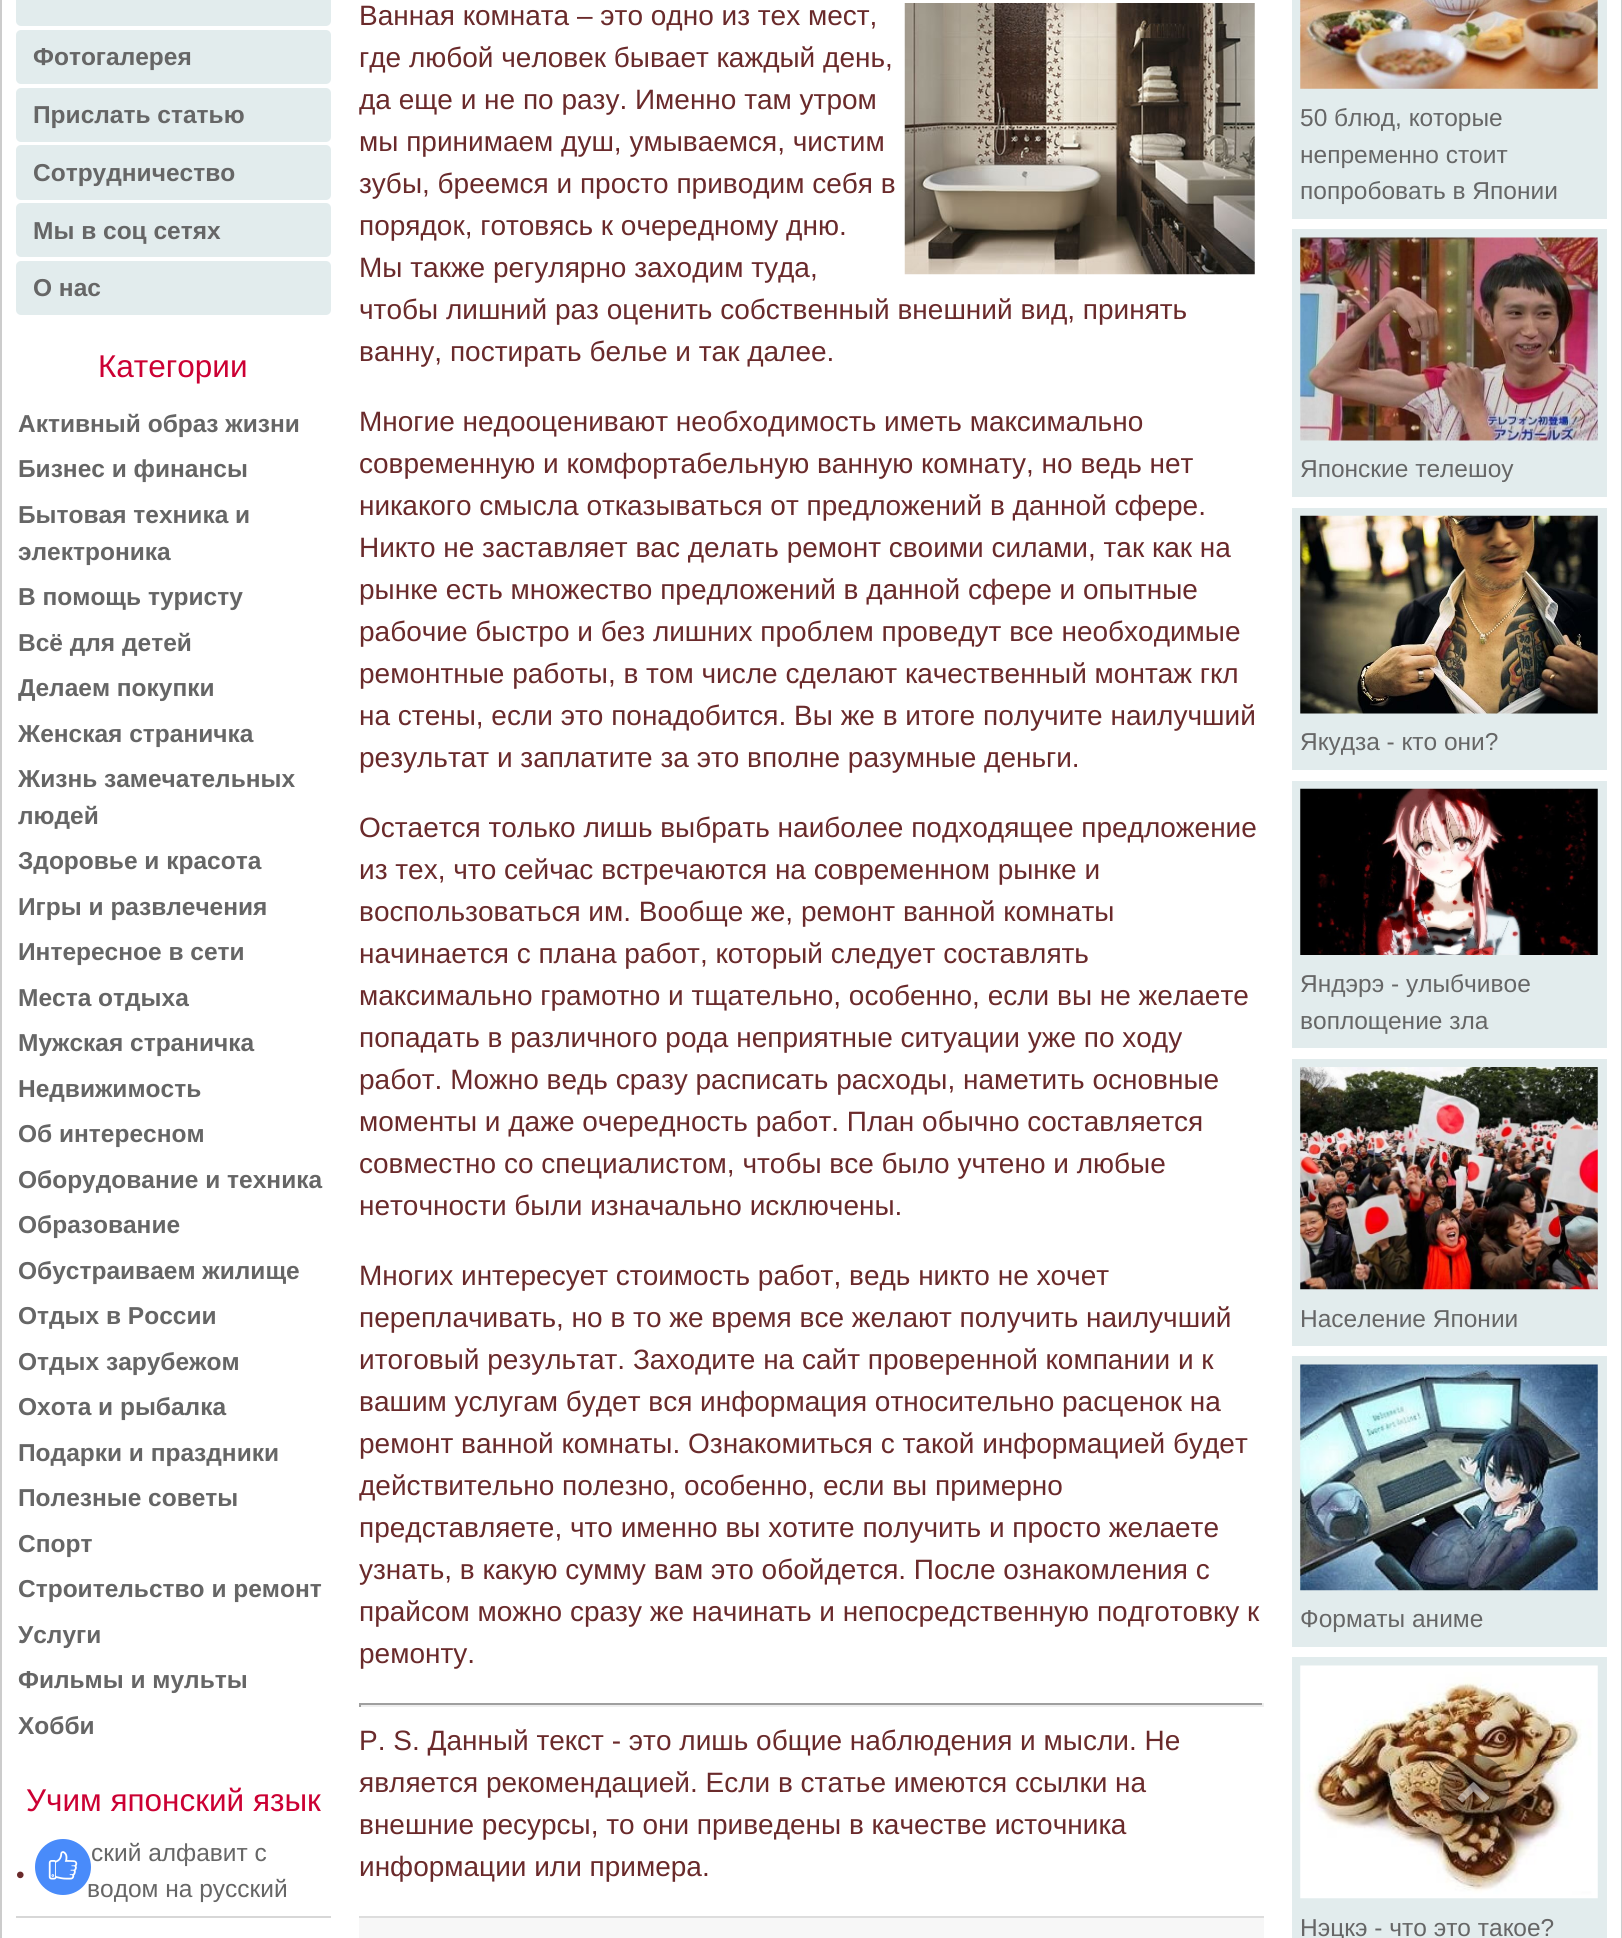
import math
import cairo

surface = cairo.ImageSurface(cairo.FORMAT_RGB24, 1622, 1938)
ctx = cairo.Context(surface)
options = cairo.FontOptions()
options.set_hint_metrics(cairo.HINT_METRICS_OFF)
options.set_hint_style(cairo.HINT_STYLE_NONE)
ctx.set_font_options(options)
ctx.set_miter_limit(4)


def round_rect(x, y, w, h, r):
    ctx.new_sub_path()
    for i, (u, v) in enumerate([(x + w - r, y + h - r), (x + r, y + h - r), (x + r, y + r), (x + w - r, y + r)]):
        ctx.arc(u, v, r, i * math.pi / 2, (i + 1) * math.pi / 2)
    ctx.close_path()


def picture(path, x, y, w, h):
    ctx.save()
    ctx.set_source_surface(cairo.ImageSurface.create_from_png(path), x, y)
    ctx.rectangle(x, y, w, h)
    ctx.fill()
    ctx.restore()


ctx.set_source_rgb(1, 1, 1)
ctx.paint()
ctx.set_source_rgb(0.8, 0.8, 0.8)
ctx.rectangle(1621, 0, 1, 1938)
ctx.fill()
ctx.rectangle(0, 0, 2, 1938)
ctx.fill()
ctx.set_source_rgb(0.886, 0.922, 0.929)
round_rect(16, -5, 315, 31, 5)
ctx.fill()
round_rect(16, 30, 315, 54, 5)
ctx.fill()
ctx.select_font_face("Liberation Sans", cairo.FONT_SLANT_NORMAL, cairo.FONT_WEIGHT_BOLD)
ctx.set_font_size(24.5)
ctx.set_source_rgb(0.4, 0.4, 0.4)
ctx.move_to(33, 65)
ctx.show_text("Фотогалерея")
ctx.set_source_rgb(0.886, 0.922, 0.929)
round_rect(16, 88, 315, 54, 5)
ctx.fill()
ctx.set_source_rgb(0.4, 0.4, 0.4)
ctx.move_to(33, 123)
ctx.show_text("Прислать статью")
ctx.set_source_rgb(0.886, 0.922, 0.929)
round_rect(16, 145, 315, 55, 5)
ctx.fill()
ctx.set_source_rgb(0.4, 0.4, 0.4)
ctx.move_to(33, 181)
ctx.show_text("Сотрудничество")
ctx.set_source_rgb(0.886, 0.922, 0.929)
round_rect(16, 203, 315, 54, 5)
ctx.fill()
ctx.set_source_rgb(0.4, 0.4, 0.4)
ctx.move_to(33, 239)
ctx.show_text("Мы в соц сетях")
ctx.set_source_rgb(0.886, 0.922, 0.929)
round_rect(16, 261, 315, 54, 5)
ctx.fill()
ctx.set_source_rgb(0.4, 0.4, 0.4)
ctx.move_to(33, 296)
ctx.show_text("О нас")
ctx.select_font_face("Liberation Sans")
ctx.set_font_size(31.5)
ctx.set_source_rgb(0.8, 0, 0.2)
ctx.move_to(98, 377)
ctx.show_text("Категории")
ctx.select_font_face("Liberation Sans", cairo.FONT_SLANT_NORMAL, cairo.FONT_WEIGHT_BOLD)
ctx.set_font_size(24.5)
ctx.set_source_rgb(0.4, 0.4, 0.4)
ctx.move_to(18, 432)
ctx.show_text("Активный образ жизни")
ctx.move_to(18, 477)
ctx.show_text("Бизнес и финансы")
ctx.move_to(18, 523)
ctx.show_text("Бытовая техника и")
ctx.move_to(18, 560)
ctx.show_text("электроника")
ctx.move_to(18, 605)
ctx.show_text("В помощь туристу")
ctx.move_to(18, 651)
ctx.show_text("Всё для детей")
ctx.move_to(18, 696)
ctx.show_text("Делаем покупки")
ctx.move_to(18, 742)
ctx.show_text("Женская страничка")
ctx.move_to(18, 787)
ctx.show_text("Жизнь замечательных")
ctx.move_to(18, 824)
ctx.show_text("людей")
ctx.move_to(18, 869)
ctx.show_text("Здоровье и красота")
ctx.move_to(18, 915)
ctx.show_text("Игры и развлечения")
ctx.move_to(18, 960)
ctx.show_text("Интересное в сети")
ctx.move_to(18, 1006)
ctx.show_text("Места отдыха")
ctx.move_to(18, 1051)
ctx.show_text("Мужская страничка")
ctx.move_to(18, 1097)
ctx.show_text("Недвижимость")
ctx.move_to(18, 1142)
ctx.show_text("Об интересном")
ctx.move_to(18, 1188)
ctx.show_text("Оборудование и техника")
ctx.move_to(18, 1233)
ctx.show_text("Образование")
ctx.move_to(18, 1279)
ctx.show_text("Обустраиваем жилище")
ctx.move_to(18, 1324)
ctx.show_text("Отдых в России")
ctx.move_to(18, 1370)
ctx.show_text("Отдых зарубежом")
ctx.move_to(18, 1415)
ctx.show_text("Охота и рыбалка")
ctx.move_to(18, 1461)
ctx.show_text("Подарки и праздники")
ctx.move_to(18, 1506)
ctx.show_text("Полезные советы")
ctx.move_to(18, 1552)
ctx.show_text("Спорт")
ctx.move_to(18, 1597)
ctx.show_text("Строительство и ремонт")
ctx.move_to(18, 1643)
ctx.show_text("Услуги")
ctx.move_to(18, 1688)
ctx.show_text("Фильмы и мульты")
ctx.move_to(18, 1734)
ctx.show_text("Хобби")
ctx.select_font_face("Liberation Sans")
ctx.set_font_size(31.5)
ctx.set_source_rgb(0.8, 0, 0.2)
ctx.move_to(26, 1811)
ctx.show_text("Учим японский язык")
ctx.set_source_rgb(0.843, 0.843, 0.843)
ctx.rectangle(16, 1916, 315, 2)
ctx.fill()
ctx.set_font_size(24.5)
ctx.set_source_rgb(0.4, 0.4, 0.4)
ctx.move_to(91, 1861)
ctx.show_text("ский алфавит с")
ctx.set_source_rgb(0.416, 0.165, 0.169)
ctx.move_to(16, 1883)
ctx.show_text("•")
ctx.set_source_rgb(0.4, 0.4, 0.4)
ctx.move_to(87, 1897)
ctx.show_text("водом на русский")
ctx.set_source_rgb(0.286, 0.545, 0.98)
ctx.new_path()
ctx.arc(63, 1867, 28, 0, 2 * math.pi)
ctx.fill()
picture("img1.png", 48, 1851, 30, 29)
ctx.set_font_size(28)
ctx.set_source_rgb(0.416, 0.165, 0.169)
ctx.move_to(359, 25)
ctx.show_text("Ванная комната – это одно из тех мест,")
picture("img2.png", 904, 3, 351, 272)
ctx.move_to(359, 67)
ctx.show_text("где любой человек бывает каждый день,")
ctx.move_to(359, 109)
ctx.show_text("да еще и не по разу. Именно там утром")
ctx.move_to(359, 151)
ctx.show_text("мы принимаем душ, умываемся, чистим")
ctx.move_to(359, 193)
ctx.show_text("зубы, бреемся и просто приводим себя в")
ctx.move_to(359, 235)
ctx.show_text("порядок, готовясь к очередному дню.")
ctx.move_to(359, 277)
ctx.show_text("Мы также регулярно заходим туда,")
ctx.move_to(359, 319)
ctx.show_text("чтобы лишний раз оценить собственный внешний вид, принять")
ctx.move_to(359, 361)
ctx.show_text("ванну, постирать белье и так далее.")
ctx.move_to(359, 431)
ctx.show_text("Многие недооценивают необходимость иметь максимально")
ctx.move_to(359, 473)
ctx.show_text("современную и комфортабельную ванную комнату, но ведь нет")
ctx.move_to(359, 515)
ctx.show_text("никакого смысла отказываться от предложений в данной сфере.")
ctx.move_to(359, 557)
ctx.show_text("Никто не заставляет вас делать ремонт своими силами, так как на")
ctx.move_to(359, 599)
ctx.show_text("рынке есть множество предложений в данной сфере и опытные")
ctx.move_to(359, 641)
ctx.show_text("рабочие быстро и без лишних проблем проведут все необходимые")
ctx.move_to(359, 683)
ctx.show_text("ремонтные работы, в том числе сделают качественный монтаж гкл")
ctx.move_to(359, 725)
ctx.show_text("на стены, если это понадобится. Вы же в итоге получите наилучший")
ctx.move_to(359, 767)
ctx.show_text("результат и заплатите за это вполне разумные деньги.")
ctx.move_to(359, 837)
ctx.show_text("Остается только лишь выбрать наиболее подходящее предложение")
ctx.move_to(359, 879)
ctx.show_text("из тех, что сейчас встречаются на современном рынке и")
ctx.move_to(359, 921)
ctx.show_text("воспользоваться им. Вообще же, ремонт ванной комнаты")
ctx.move_to(359, 963)
ctx.show_text("начинается с плана работ, который следует составлять")
ctx.move_to(359, 1005)
ctx.show_text("максимально грамотно и тщательно, особенно, если вы не желаете")
ctx.move_to(359, 1047)
ctx.show_text("попадать в различного рода неприятные ситуации уже по ходу")
ctx.move_to(359, 1089)
ctx.show_text("работ. Можно ведь сразу расписать расходы, наметить основные")
ctx.move_to(359, 1131)
ctx.show_text("моменты и даже очередность работ. План обычно составляется")
ctx.move_to(359, 1173)
ctx.show_text("совместно со специалистом, чтобы все было учтено и любые")
ctx.move_to(359, 1215)
ctx.show_text("неточности были изначально исключены.")
ctx.move_to(359, 1285)
ctx.show_text("Многих интересует стоимость работ, ведь никто не хочет")
ctx.move_to(359, 1327)
ctx.show_text("переплачивать, но в то же время все желают получить наилучший")
ctx.move_to(359, 1369)
ctx.show_text("итоговый результат. Заходите на сайт проверенной компании и к")
ctx.move_to(359, 1411)
ctx.show_text("вашим услугам будет вся информация относительно расценок на")
ctx.move_to(359, 1453)
ctx.show_text("ремонт ванной комнаты. Ознакомиться с такой информацией будет")
ctx.move_to(359, 1495)
ctx.show_text("действительно полезно, особенно, если вы примерно")
ctx.move_to(359, 1537)
ctx.show_text("представляете, что именно вы хотите получить и просто желаете")
ctx.move_to(359, 1579)
ctx.show_text("узнать, в какую сумму вам это обойдется. После ознакомления с")
ctx.move_to(359, 1621)
ctx.show_text("прайсом можно сразу же начинать и непосредственную подготовку к")
ctx.move_to(359, 1663)
ctx.show_text("ремонту.")
ctx.set_source_rgb(0.624, 0.624, 0.624)
ctx.rectangle(359, 1703, 905, 2)
ctx.fill()
ctx.set_source_rgb(0.933, 0.933, 0.933)
ctx.rectangle(1262, 1703, 2, 4)
ctx.fill()
ctx.rectangle(359, 1705, 905, 2)
ctx.fill()
ctx.set_source_rgb(0.624, 0.624, 0.624)
ctx.rectangle(359, 1703, 2, 4)
ctx.fill()
ctx.set_source_rgb(0.416, 0.165, 0.169)
ctx.move_to(359, 1750)
ctx.show_text("P. S. Данный текст - это лишь общие наблюдения и мысли. Не")
ctx.move_to(359, 1792)
ctx.show_text("является рекомендацией. Если в статье имеются ссылки на")
ctx.move_to(359, 1834)
ctx.show_text("внешние ресурсы, то они приведены в качестве источника")
ctx.move_to(359, 1876)
ctx.show_text("информации или примера.")
ctx.set_source_rgb(0.965, 0.965, 0.965)
ctx.rectangle(359, 1918, 905, 20)
ctx.fill()
ctx.set_source_rgb(0.867, 0.867, 0.867)
ctx.rectangle(359, 1916, 905, 2)
ctx.fill()
ctx.set_source_rgb(0.886, 0.922, 0.929)
ctx.rectangle(1292, 0, 315, 219)
ctx.fill()
picture("img3.png", 1300, 0, 298, 89)
ctx.set_font_size(24.5)
ctx.set_source_rgb(0.4, 0.4, 0.4)
ctx.move_to(1300, 126)
ctx.show_text("50 блюд, которые")
ctx.move_to(1300, 163)
ctx.show_text("непременно стоит")
ctx.move_to(1300, 199)
ctx.show_text("попробовать в Японии")
ctx.set_source_rgb(0.886, 0.922, 0.929)
ctx.rectangle(1292, 229, 315, 268)
ctx.fill()
picture("img4.png", 1300, 237, 298, 204)
ctx.set_source_rgb(0.4, 0.4, 0.4)
ctx.move_to(1300, 477)
ctx.show_text("Японские телешоу")
ctx.set_source_rgb(0.886, 0.922, 0.929)
ctx.rectangle(1292, 508, 315, 262)
ctx.fill()
picture("img5.png", 1300, 515, 298, 199)
ctx.set_source_rgb(0.4, 0.4, 0.4)
ctx.move_to(1300, 750)
ctx.show_text("Якудза - кто они?")
ctx.set_source_rgb(0.886, 0.922, 0.929)
ctx.rectangle(1292, 781, 315, 267)
ctx.fill()
picture("img6.png", 1300, 788, 298, 167)
ctx.set_source_rgb(0.4, 0.4, 0.4)
ctx.move_to(1300, 992)
ctx.show_text("Яндэрэ - улыбчивое")
ctx.move_to(1300, 1029)
ctx.show_text("воплощение зла")
ctx.set_source_rgb(0.886, 0.922, 0.929)
ctx.rectangle(1292, 1059, 315, 287)
ctx.fill()
picture("img7.png", 1300, 1067, 298, 223)
ctx.set_source_rgb(0.4, 0.4, 0.4)
ctx.move_to(1300, 1327)
ctx.show_text("Население Японии")
ctx.set_source_rgb(0.886, 0.922, 0.929)
ctx.rectangle(1292, 1356, 315, 291)
ctx.fill()
picture("img8.png", 1300, 1364, 298, 227)
ctx.set_source_rgb(0.4, 0.4, 0.4)
ctx.move_to(1300, 1627)
ctx.show_text("Форматы аниме")
ctx.set_source_rgb(0.886, 0.922, 0.929)
ctx.rectangle(1292, 1657, 315, 281)
ctx.fill()
picture("img9.png", 1300, 1665, 298, 234)
ctx.set_source_rgb(0.4, 0.4, 0.4)
ctx.move_to(1300, 1936)
ctx.show_text("Нэцкэ - что это такое?")
ctx.set_source_rgba(0, 0, 0, 0.3)
ctx.new_path()
ctx.arc(1474, 1790, 35, 0, 2 * math.pi)
ctx.fill()
picture("img10.png", 1457, 1782, 33, 21)
surface.write_to_png("page.png")
